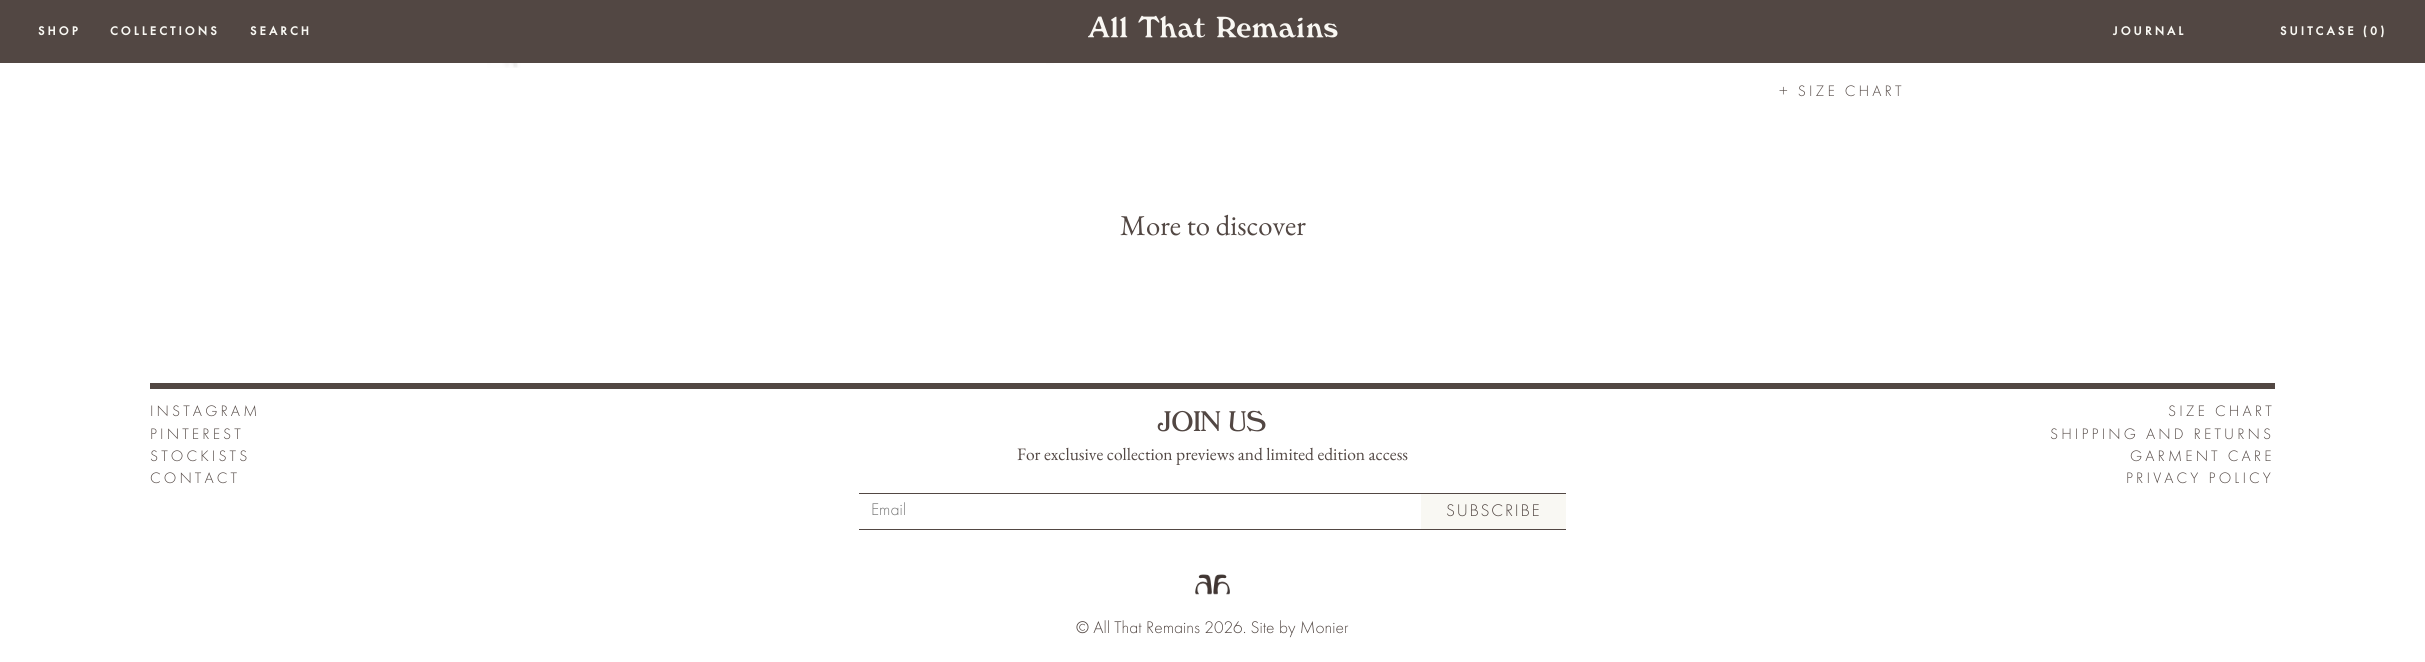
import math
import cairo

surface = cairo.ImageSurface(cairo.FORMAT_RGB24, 2425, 662)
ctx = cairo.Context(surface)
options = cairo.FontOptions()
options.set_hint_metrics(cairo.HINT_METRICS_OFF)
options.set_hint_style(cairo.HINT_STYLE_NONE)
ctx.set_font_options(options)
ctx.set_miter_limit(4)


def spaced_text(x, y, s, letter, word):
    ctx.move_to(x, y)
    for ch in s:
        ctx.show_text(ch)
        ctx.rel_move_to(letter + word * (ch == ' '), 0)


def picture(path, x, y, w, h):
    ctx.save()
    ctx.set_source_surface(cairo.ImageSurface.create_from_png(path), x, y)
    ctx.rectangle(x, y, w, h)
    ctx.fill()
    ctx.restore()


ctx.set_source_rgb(1, 1, 1)
ctx.paint()
ctx.set_source_rgb(0.322, 0.278, 0.263)
ctx.rectangle(0, 0, 2425, 63)
ctx.fill()
ctx.select_font_face("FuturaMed", cairo.FONT_SLANT_NORMAL, cairo.FONT_WEIGHT_BOLD)
ctx.set_font_size(12.5)
ctx.set_source_rgb(0.976, 0.969, 0.953)
spaced_text(38, 35, "SHOP", 3.1, 0)
spaced_text(110, 35, "COLLECTIONS", 3.1, 0)
spaced_text(250, 35, "SEARCH", 3.1, 0)
picture("img1.png", 1088, 15, 250, 23)
spaced_text(2113, 35, "JOURNAL", 3.1, 0)
spaced_text(2280, 35, "SUITCASE (0)", 3.1, 0)
picture("img2.png", 487, 63, 588, 5)
ctx.select_font_face("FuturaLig")
ctx.set_font_size(15.75)
ctx.set_source_rgb(0.322, 0.278, 0.263)
spaced_text(1779, 96, "+ SIZE CHART", 3.1, 0)
ctx.select_font_face("EB Garamond")
ctx.set_font_size(28.75)
ctx.move_to(1120, 235)
ctx.show_text("More to discover")
ctx.rectangle(150, 383, 2125, 6)
ctx.fill()
ctx.select_font_face("FuturaLig")
ctx.set_font_size(15.75)
spaced_text(150, 416, "INSTAGRAM", 3.1, 0)
spaced_text(150, 439, "PINTEREST", 3.1, 0)
spaced_text(150, 461, "STOCKISTS", 3.1, 0)
spaced_text(150, 483, "CONTACT", 3.1, 0)
ctx.select_font_face("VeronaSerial")
ctx.set_font_size(27.5)
ctx.move_to(1158, 431)
ctx.show_text("JOIN US")
ctx.select_font_face("EB Garamond")
ctx.set_font_size(17.5)
ctx.move_to(1017, 460)
ctx.show_text("For exclusive collection previews and limited edition access")
ctx.rectangle(859, 493, 707, 1)
ctx.fill()
ctx.rectangle(859, 529, 707, 1)
ctx.fill()
ctx.select_font_face("FuturaLig")
ctx.set_source_rgb(0.459, 0.459, 0.459)
ctx.move_to(871, 515)
ctx.show_text("Email")
ctx.set_source_rgb(0.976, 0.969, 0.953)
ctx.rectangle(1421, 494, 145, 35)
ctx.fill()
ctx.set_source_rgb(0.322, 0.278, 0.263)
spaced_text(1446, 516, "SUBSCRIBE", 1.75, 0)
ctx.set_font_size(15.75)
spaced_text(2168, 416, "SIZE CHART", 3.1, 0)
spaced_text(2050, 439, "SHIPPING AND RETURNS", 3.1, 0)
spaced_text(2130, 461, "GARMENT CARE", 3.1, 0)
spaced_text(2126, 483, "PRIVACY POLICY", 3.1, 0)
picture("img3.png", 1195, 574, 35, 21)
ctx.set_font_size(17.5)
ctx.move_to(1076, 633)
ctx.show_text("© All That Remains 2026. Site by Monier")
surface.write_to_png("page.png")
